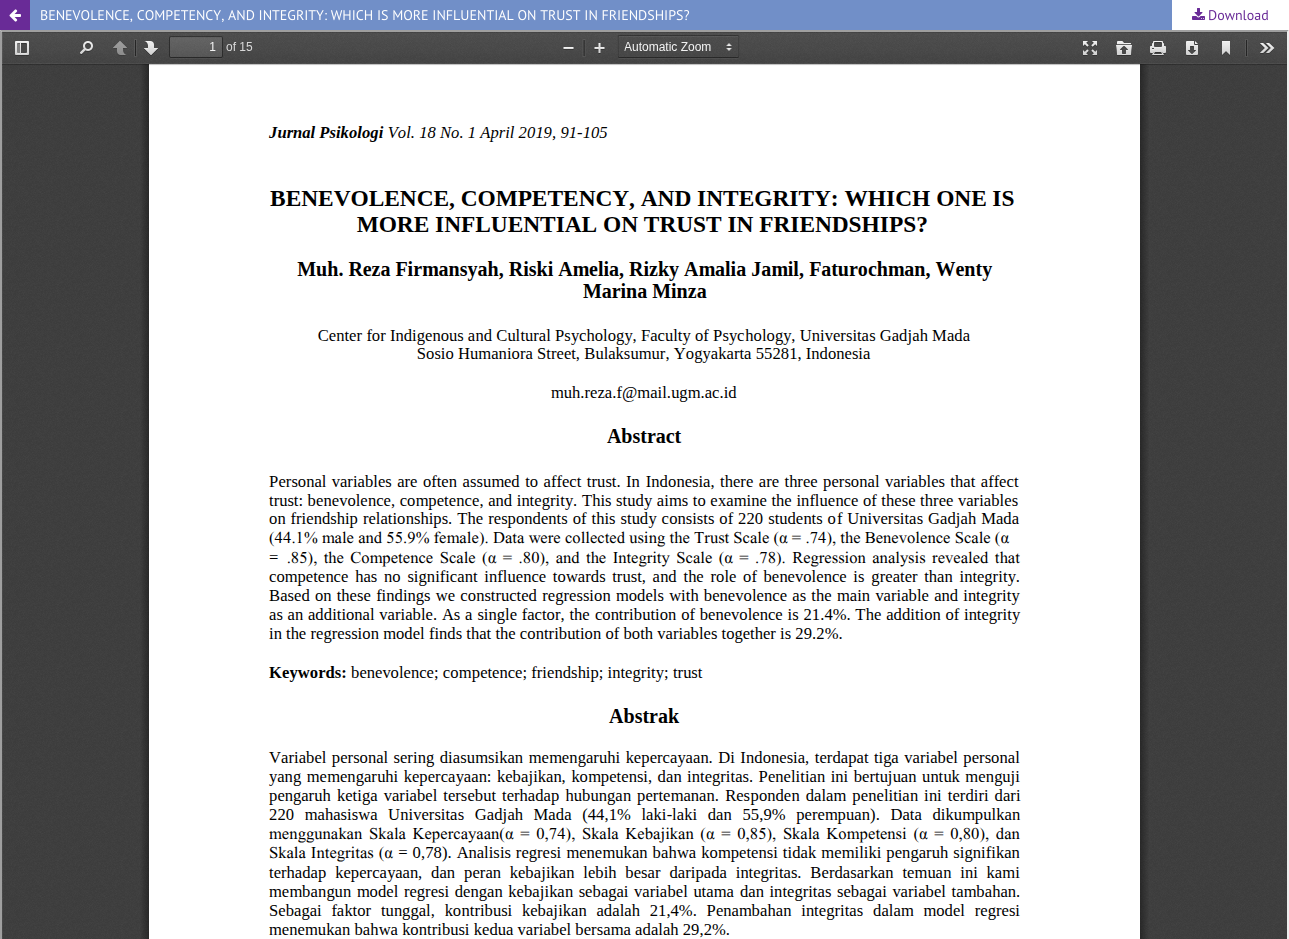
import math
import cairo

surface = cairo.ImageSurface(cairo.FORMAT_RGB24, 1289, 939)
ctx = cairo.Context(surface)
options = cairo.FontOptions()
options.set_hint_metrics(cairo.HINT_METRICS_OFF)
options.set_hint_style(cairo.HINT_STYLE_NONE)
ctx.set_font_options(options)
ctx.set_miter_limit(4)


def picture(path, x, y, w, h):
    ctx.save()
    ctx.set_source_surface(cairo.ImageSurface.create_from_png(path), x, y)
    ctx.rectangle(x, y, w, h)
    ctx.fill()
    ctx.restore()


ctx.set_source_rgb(1, 1, 1)
ctx.paint()
ctx.set_source_rgb(0.443, 0.561, 0.784)
ctx.rectangle(30, 0, 1142, 30)
ctx.fill()
ctx.set_source_rgb(0.412, 0.169, 0.592)
ctx.rectangle(0, 0, 30, 30)
ctx.fill()
picture("img1.png", 9, 9, 12, 13)
ctx.select_font_face("PT Sans")
ctx.set_font_size(14)
ctx.set_source_rgb(1, 1, 1)
ctx.move_to(40, 20)
ctx.show_text("BENEVOLENCE, COMPETENCY, AND INTEGRITY: WHICH IS MORE INFLUENTIAL ON TRUST IN FRIENDSHIPS?")
picture("img2.png", 1192, 8, 13, 12)
ctx.set_source_rgb(0.412, 0.169, 0.592)
ctx.move_to(1208, 20)
ctx.show_text("Download")
ctx.set_source_rgb(0.624, 0.624, 0.624)
ctx.new_path()
ctx.move_to(0, 30)
ctx.line_to(1289, 30)
ctx.line_to(1287, 32)
ctx.line_to(2, 32)
ctx.close_path()
ctx.fill()
ctx.new_path()
ctx.move_to(0, 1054)
ctx.line_to(0, 30)
ctx.line_to(2, 32)
ctx.line_to(2, 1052)
ctx.close_path()
ctx.fill()
picture("img3.png", 2, 32, 1285, 907)
ctx.set_source_rgb(0.933, 0.933, 0.933)
ctx.new_path()
ctx.move_to(1289, 30)
ctx.line_to(1289, 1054)
ctx.line_to(1287, 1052)
ctx.line_to(1287, 32)
ctx.close_path()
ctx.fill()
surface.write_to_png("page.png")
